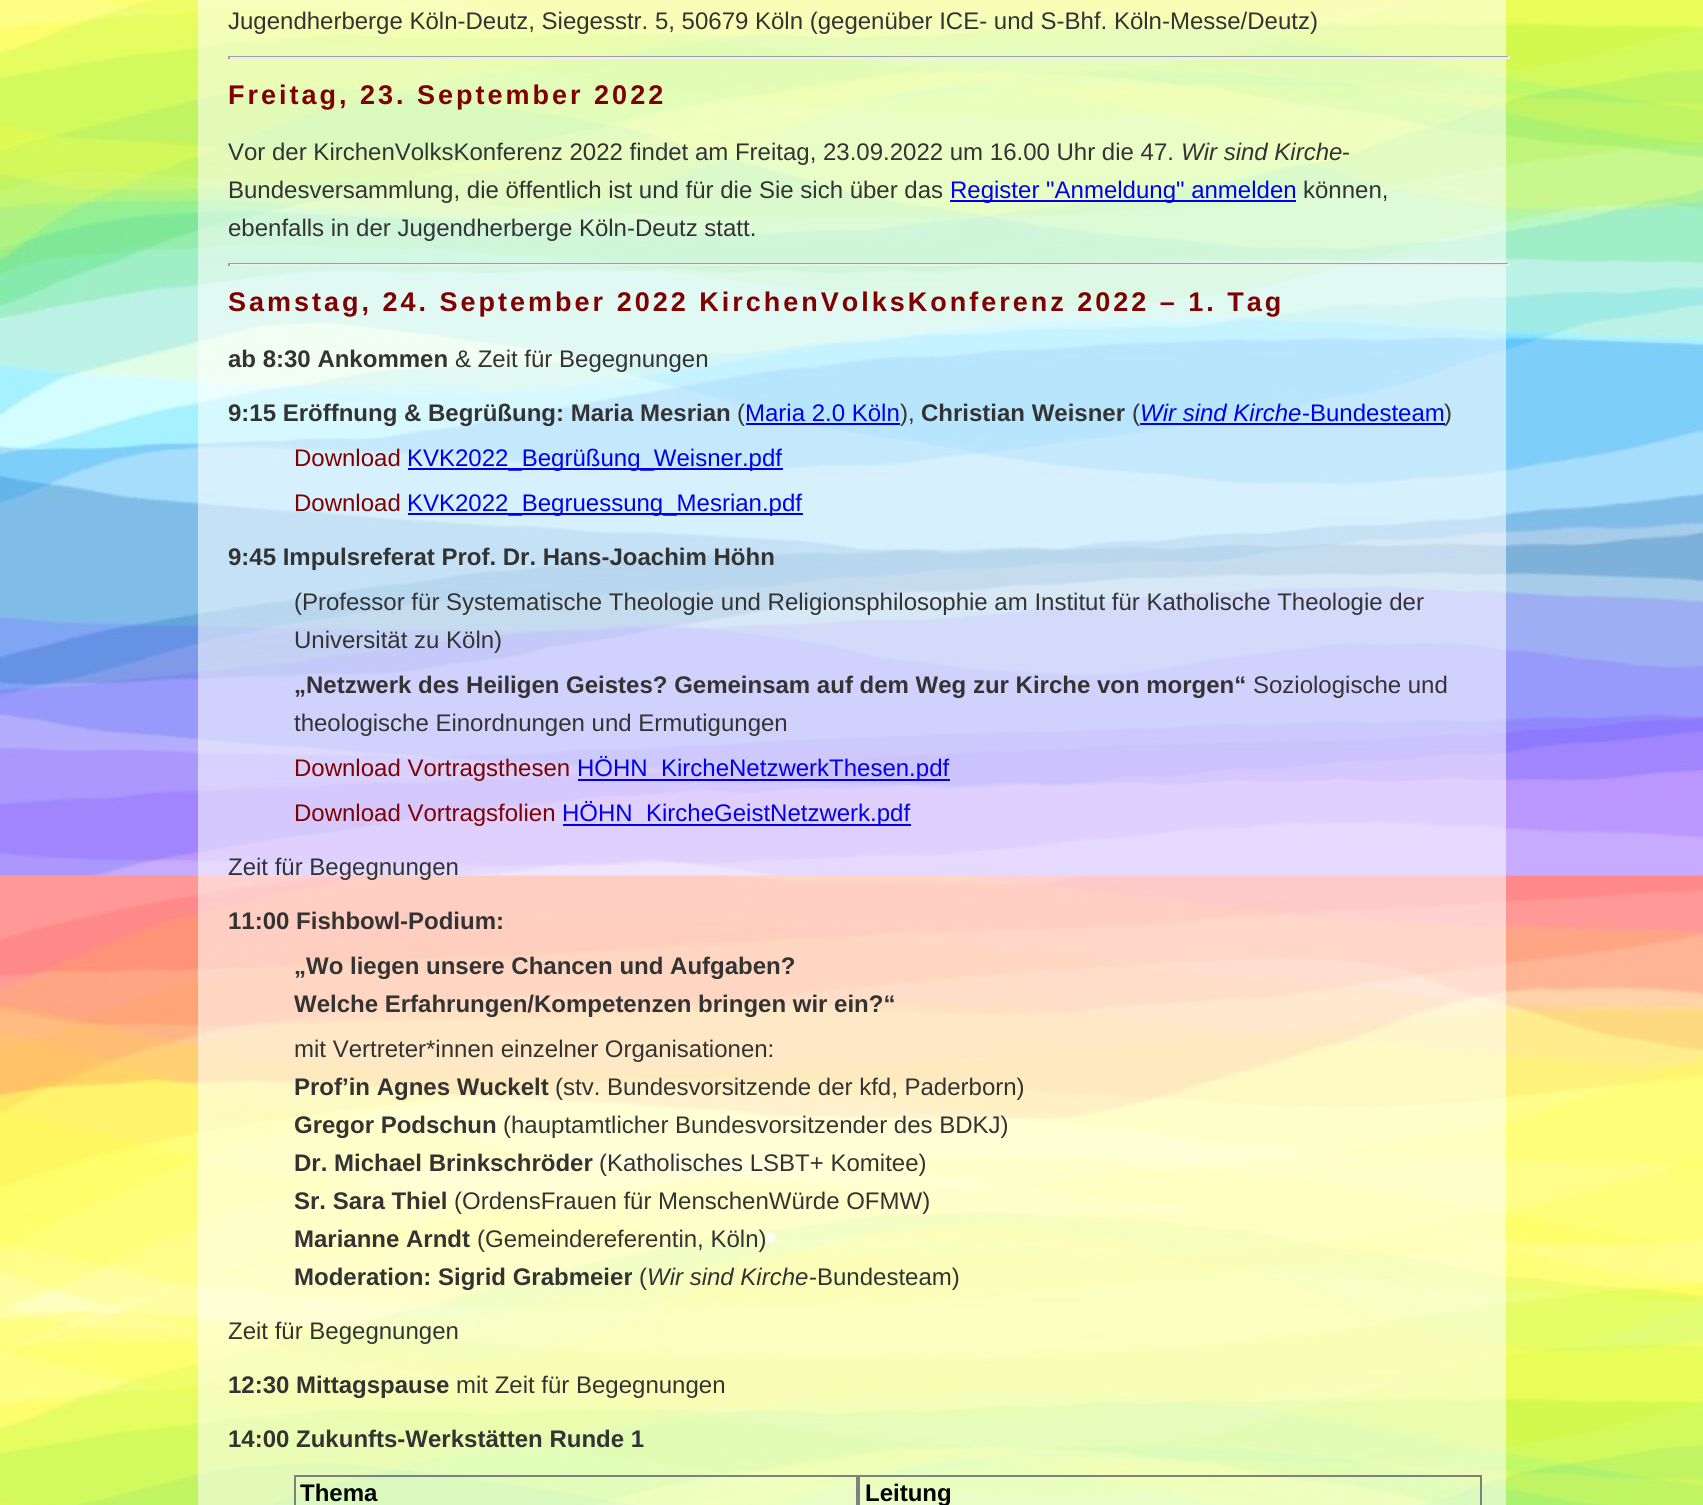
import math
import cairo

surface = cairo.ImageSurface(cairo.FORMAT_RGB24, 1703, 1505)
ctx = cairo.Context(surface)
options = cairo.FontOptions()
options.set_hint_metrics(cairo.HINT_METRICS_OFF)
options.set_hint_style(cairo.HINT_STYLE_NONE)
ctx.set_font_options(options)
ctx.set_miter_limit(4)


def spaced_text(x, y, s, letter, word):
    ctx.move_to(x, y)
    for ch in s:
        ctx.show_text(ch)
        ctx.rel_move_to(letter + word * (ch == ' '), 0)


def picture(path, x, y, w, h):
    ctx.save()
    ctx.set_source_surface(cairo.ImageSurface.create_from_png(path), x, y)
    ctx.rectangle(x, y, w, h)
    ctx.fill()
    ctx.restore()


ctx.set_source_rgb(1, 1, 1)
ctx.paint()
picture("img1.png", 0, 0, 1703, 1505)
ctx.set_source_rgba(1, 1, 1, 0.55)
ctx.rectangle(198, 0, 1308, 1505)
ctx.fill()
ctx.select_font_face("Liberation Sans")
ctx.set_font_size(24)
ctx.set_source_rgb(0.2, 0.2, 0.2)
ctx.move_to(228, 29)
ctx.show_text("Jugendherberge Köln-Deutz, Siegesstr. 5, 50679 Köln (gegenüber ICE- und S-Bhf. Köln-Messe/Deutz)")
ctx.set_source_rgb(0.624, 0.624, 0.624)
ctx.rectangle(228, 56, 1281, 1)
ctx.fill()
ctx.set_source_rgb(0.933, 0.933, 0.933)
ctx.rectangle(1508, 56, 2, 3)
ctx.fill()
ctx.rectangle(228, 57, 1281, 2)
ctx.fill()
ctx.set_source_rgb(0.624, 0.624, 0.624)
ctx.rectangle(228, 56, 2, 3)
ctx.fill()
ctx.select_font_face("Liberation Sans", cairo.FONT_SLANT_NORMAL, cairo.FONT_WEIGHT_BOLD)
ctx.set_font_size(27)
ctx.set_source_rgb(0.502, 0, 0)
spaced_text(228, 104, "Freitag, 23. September 2022", 3, 0)
ctx.select_font_face("Liberation Sans")
ctx.set_font_size(24)
ctx.set_source_rgb(0.2, 0.2, 0.2)
ctx.move_to(228, 160)
ctx.show_text("Vor der KirchenVolksKonferenz 2022 findet am Freitag, 23.09.2022 um 16.00 Uhr die 47.")
ctx.select_font_face("Liberation Sans", cairo.FONT_SLANT_ITALIC)
ctx.move_to(1181, 160)
ctx.show_text("Wir sind Kirche")
ctx.select_font_face("Liberation Sans")
ctx.move_to(1342, 160)
ctx.show_text("-")
ctx.move_to(228, 198)
ctx.show_text("Bundesversammlung, die öffentlich ist und für die Sie sich über das")
ctx.set_source_rgb(0, 0, 0.933)
ctx.rectangle(950, 200, 346, 2)
ctx.fill()
ctx.move_to(950, 198)
ctx.show_text("Register \"Anmeldung\" anmelden")
ctx.set_source_rgb(0.2, 0.2, 0.2)
ctx.move_to(1303, 198)
ctx.show_text("können,")
ctx.move_to(228, 236)
ctx.show_text("ebenfalls in der Jugendherberge Köln-Deutz statt.")
ctx.set_source_rgb(0.624, 0.624, 0.624)
ctx.rectangle(228, 263, 1281, 1)
ctx.fill()
ctx.set_source_rgb(0.933, 0.933, 0.933)
ctx.rectangle(1508, 263, 2, 3)
ctx.fill()
ctx.rectangle(228, 264, 1281, 2)
ctx.fill()
ctx.set_source_rgb(0.624, 0.624, 0.624)
ctx.rectangle(228, 263, 2, 3)
ctx.fill()
ctx.select_font_face("Liberation Sans", cairo.FONT_SLANT_NORMAL, cairo.FONT_WEIGHT_BOLD)
ctx.set_font_size(27)
ctx.set_source_rgb(0.502, 0, 0)
spaced_text(228, 311, "Samstag, 24. September 2022 KirchenVolksKonferenz 2022 – 1. Tag", 3, 0)
ctx.set_font_size(24)
ctx.set_source_rgb(0.2, 0.2, 0.2)
ctx.move_to(228, 367)
ctx.show_text("ab 8:30 Ankommen")
ctx.select_font_face("Liberation Sans")
ctx.move_to(455, 367)
ctx.show_text("& Zeit für Begegnungen")
ctx.select_font_face("Liberation Sans", cairo.FONT_SLANT_NORMAL, cairo.FONT_WEIGHT_BOLD)
ctx.move_to(228, 421)
ctx.show_text("9:15 Eröffnung & Begrüßung: Maria Mesrian")
ctx.select_font_face("Liberation Sans")
ctx.move_to(737, 421)
ctx.show_text("(")
ctx.set_source_rgb(0, 0, 0.933)
ctx.move_to(745, 421)
ctx.show_text("Maria 2.0 Köln")
ctx.rectangle(746, 423, 154, 2)
ctx.fill()
ctx.set_source_rgb(0.2, 0.2, 0.2)
ctx.move_to(900, 421)
ctx.show_text("),")
ctx.select_font_face("Liberation Sans", cairo.FONT_SLANT_NORMAL, cairo.FONT_WEIGHT_BOLD)
ctx.move_to(921, 421)
ctx.show_text("Christian Weisner")
ctx.select_font_face("Liberation Sans")
ctx.move_to(1132, 421)
ctx.show_text("(")
ctx.select_font_face("Liberation Sans", cairo.FONT_SLANT_ITALIC)
ctx.set_source_rgb(0, 0, 0.933)
ctx.move_to(1140, 421)
ctx.show_text("Wir sind Kirche")
ctx.rectangle(1140, 423, 305, 2)
ctx.fill()
ctx.select_font_face("Liberation Sans")
ctx.move_to(1302, 421)
ctx.show_text("-Bundesteam")
ctx.set_source_rgb(0.2, 0.2, 0.2)
ctx.move_to(1444, 421)
ctx.show_text(")")
ctx.set_source_rgb(0.502, 0, 0)
ctx.move_to(294, 466)
ctx.show_text("Download")
ctx.set_source_rgb(0, 0, 0.933)
ctx.rectangle(408, 468, 375, 2)
ctx.fill()
ctx.move_to(407, 466)
ctx.show_text("KVK2022_Begrüßung_Weisner.pdf")
ctx.set_source_rgb(0.502, 0, 0)
ctx.move_to(294, 511)
ctx.show_text("Download")
ctx.set_source_rgb(0, 0, 0.933)
ctx.rectangle(408, 513, 395, 2)
ctx.fill()
ctx.move_to(407, 511)
ctx.show_text("KVK2022_Begruessung_Mesrian.pdf")
ctx.select_font_face("Liberation Sans", cairo.FONT_SLANT_NORMAL, cairo.FONT_WEIGHT_BOLD)
ctx.set_source_rgb(0.2, 0.2, 0.2)
ctx.move_to(228, 565)
ctx.show_text("9:45 Impulsreferat Prof. Dr. Hans-Joachim Höhn")
ctx.select_font_face("Liberation Sans")
ctx.move_to(294, 610)
ctx.show_text("(Professor für Systematische Theologie und Religionsphilosophie am Institut für Katholische Theologie der")
ctx.move_to(294, 648)
ctx.show_text("Universität zu Köln)")
ctx.select_font_face("Liberation Sans", cairo.FONT_SLANT_NORMAL, cairo.FONT_WEIGHT_BOLD)
ctx.move_to(294, 693)
ctx.show_text("„Netzwerk des Heiligen Geistes? Gemeinsam auf dem Weg zur Kirche von morgen“")
ctx.select_font_face("Liberation Sans")
ctx.move_to(1253, 693)
ctx.show_text("Soziologische und")
ctx.move_to(294, 731)
ctx.show_text("theologische Einordnungen und Ermutigungen")
ctx.set_source_rgb(0.502, 0, 0)
ctx.move_to(294, 776)
ctx.show_text("Download Vortragsthesen")
ctx.set_source_rgb(0, 0, 0.933)
ctx.rectangle(578, 779, 372, 2)
ctx.fill()
ctx.move_to(577, 776)
ctx.show_text("HÖHN_KircheNetzwerkThesen.pdf")
ctx.set_source_rgb(0.502, 0, 0)
ctx.move_to(294, 821)
ctx.show_text("Download Vortragsfolien")
ctx.set_source_rgb(0, 0, 0.933)
ctx.rectangle(563, 824, 348, 2)
ctx.fill()
ctx.move_to(562, 821)
ctx.show_text("HÖHN_KircheGeistNetzwerk.pdf")
ctx.set_source_rgb(0.2, 0.2, 0.2)
ctx.move_to(228, 875)
ctx.show_text("Zeit für Begegnungen")
ctx.select_font_face("Liberation Sans", cairo.FONT_SLANT_NORMAL, cairo.FONT_WEIGHT_BOLD)
ctx.move_to(228, 929)
ctx.show_text("11:00 Fishbowl-Podium:")
ctx.move_to(294, 974)
ctx.show_text("„Wo liegen unsere Chancen und Aufgaben?")
ctx.move_to(294, 1012)
ctx.show_text("Welche Erfahrungen/Kompetenzen bringen wir ein?“")
ctx.select_font_face("Liberation Sans")
ctx.move_to(294, 1057)
ctx.show_text("mit Vertreter*innen einzelner Organisationen:")
ctx.select_font_face("Liberation Sans", cairo.FONT_SLANT_NORMAL, cairo.FONT_WEIGHT_BOLD)
ctx.move_to(294, 1095)
ctx.show_text("Prof’in Agnes Wuckelt")
ctx.select_font_face("Liberation Sans")
ctx.move_to(555, 1095)
ctx.show_text("(stv. Bundesvorsitzende der kfd, Paderborn)")
ctx.select_font_face("Liberation Sans", cairo.FONT_SLANT_NORMAL, cairo.FONT_WEIGHT_BOLD)
ctx.move_to(294, 1133)
ctx.show_text("Gregor Podschun")
ctx.select_font_face("Liberation Sans")
ctx.move_to(503, 1133)
ctx.show_text("(hauptamtlicher Bundesvorsitzender des BDKJ)")
ctx.select_font_face("Liberation Sans", cairo.FONT_SLANT_NORMAL, cairo.FONT_WEIGHT_BOLD)
ctx.move_to(294, 1171)
ctx.show_text("Dr. Michael Brinkschröder")
ctx.select_font_face("Liberation Sans")
ctx.move_to(599, 1171)
ctx.show_text("(Katholisches LSBT+ Komitee)")
ctx.select_font_face("Liberation Sans", cairo.FONT_SLANT_NORMAL, cairo.FONT_WEIGHT_BOLD)
ctx.move_to(294, 1209)
ctx.show_text("Sr. Sara Thiel")
ctx.select_font_face("Liberation Sans")
ctx.move_to(454, 1209)
ctx.show_text("(OrdensFrauen für MenschenWürde OFMW)")
ctx.select_font_face("Liberation Sans", cairo.FONT_SLANT_NORMAL, cairo.FONT_WEIGHT_BOLD)
ctx.move_to(294, 1247)
ctx.show_text("Marianne Arndt")
ctx.select_font_face("Liberation Sans")
ctx.move_to(477, 1247)
ctx.show_text("(Gemeindereferentin, Köln)")
ctx.select_font_face("Liberation Sans", cairo.FONT_SLANT_NORMAL, cairo.FONT_WEIGHT_BOLD)
ctx.move_to(294, 1285)
ctx.show_text("Moderation: Sigrid Grabmeier")
ctx.select_font_face("Liberation Sans")
ctx.move_to(639, 1285)
ctx.show_text("(")
ctx.select_font_face("Liberation Sans", cairo.FONT_SLANT_ITALIC)
ctx.move_to(647, 1285)
ctx.show_text("Wir sind Kirche")
ctx.select_font_face("Liberation Sans")
ctx.move_to(809, 1285)
ctx.show_text("-Bundesteam)")
ctx.move_to(228, 1339)
ctx.show_text("Zeit für Begegnungen")
ctx.select_font_face("Liberation Sans", cairo.FONT_SLANT_NORMAL, cairo.FONT_WEIGHT_BOLD)
ctx.move_to(228, 1393)
ctx.show_text("12:30 Mittagspause")
ctx.select_font_face("Liberation Sans")
ctx.move_to(456, 1393)
ctx.show_text("mit Zeit für Begegnungen")
ctx.select_font_face("Liberation Sans", cairo.FONT_SLANT_NORMAL, cairo.FONT_WEIGHT_BOLD)
ctx.move_to(228, 1447)
ctx.show_text("14:00 Zukunfts-Werkstätten Runde 1")
ctx.rectangle(295, 1476, 562, 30)
ctx.set_source_rgb(0.502, 0.502, 0.502)
ctx.stroke()
ctx.set_source_rgb(0, 0, 0)
ctx.move_to(300, 1501)
ctx.show_text("Thema")
ctx.rectangle(859, 1476, 622, 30)
ctx.set_source_rgb(0.502, 0.502, 0.502)
ctx.stroke()
ctx.set_source_rgb(0, 0, 0)
ctx.move_to(865, 1501)
ctx.show_text("Leitung")
surface.write_to_png("page.png")
